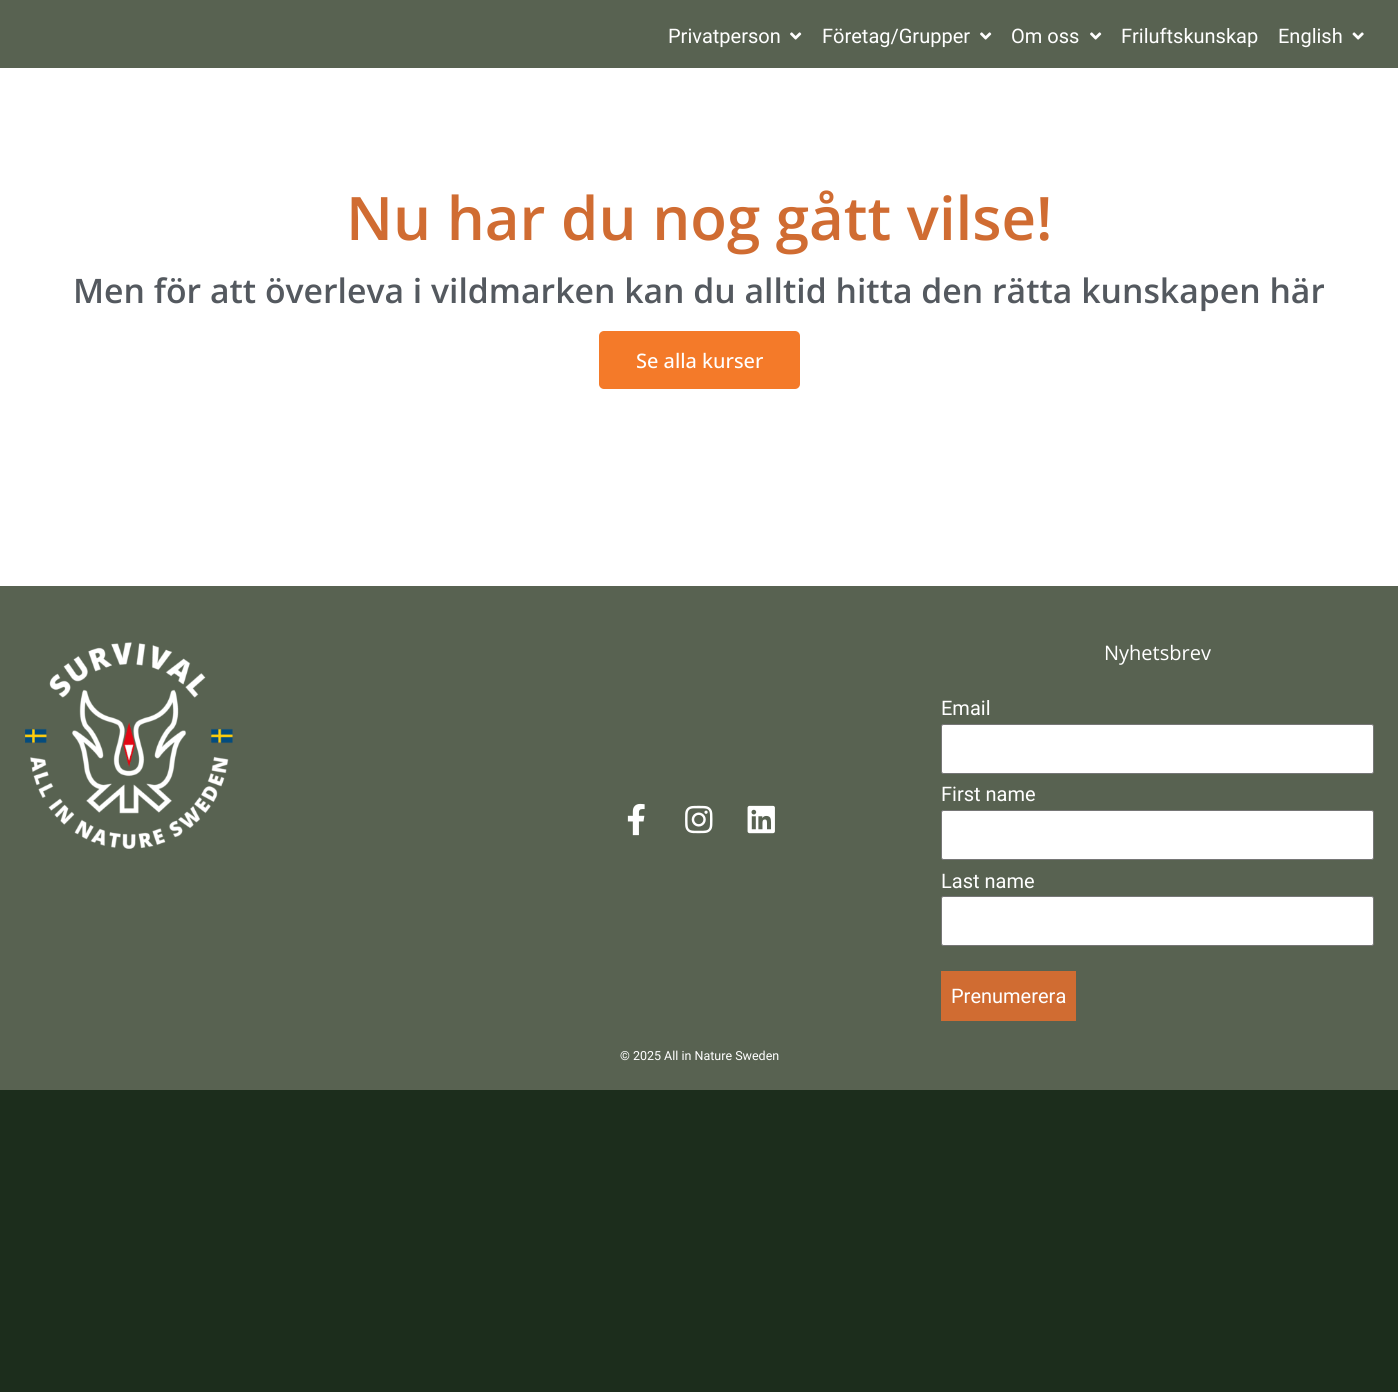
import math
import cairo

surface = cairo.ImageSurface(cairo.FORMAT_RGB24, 1398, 1392)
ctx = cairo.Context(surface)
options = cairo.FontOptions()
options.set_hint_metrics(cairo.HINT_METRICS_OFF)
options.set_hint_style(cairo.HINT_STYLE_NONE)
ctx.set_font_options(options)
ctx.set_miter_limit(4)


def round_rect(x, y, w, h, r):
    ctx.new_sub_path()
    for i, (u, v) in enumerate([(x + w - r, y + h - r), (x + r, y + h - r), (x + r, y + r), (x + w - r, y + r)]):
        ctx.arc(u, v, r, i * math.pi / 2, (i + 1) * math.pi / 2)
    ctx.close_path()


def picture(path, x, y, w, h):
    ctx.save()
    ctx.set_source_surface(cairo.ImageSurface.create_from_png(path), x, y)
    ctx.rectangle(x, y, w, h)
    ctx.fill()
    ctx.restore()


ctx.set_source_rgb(0.11, 0.176, 0.11)
ctx.paint()
ctx.set_source_rgb(1, 1, 1)
ctx.rectangle(0, 68, 1398, 518)
ctx.fill()
ctx.set_source_rgb(0.345, 0.384, 0.318)
ctx.rectangle(0, 0, 1398, 68)
ctx.fill()
ctx.select_font_face("Roboto")
ctx.set_font_size(20)
ctx.set_source_rgb(1, 1, 1)
ctx.move_to(668, 43)
ctx.show_text("Privatperson")
picture("img1.png", 790, 32, 12, 8)
ctx.move_to(822, 43)
ctx.show_text("Företag/Grupper")
picture("img1.png", 980, 32, 12, 8)
ctx.move_to(1011, 43)
ctx.show_text("Om oss")
picture("img1.png", 1090, 32, 12, 8)
ctx.move_to(1121, 43)
ctx.show_text("Friluftskunskap")
ctx.move_to(1278, 43)
ctx.show_text("English")
picture("img2.png", 1352, 32, 12, 8)
ctx.select_font_face("Open Sans SemiBold")
ctx.set_font_size(60)
ctx.set_source_rgb(0.816, 0.424, 0.196)
ctx.move_to(346, 240)
ctx.show_text("Nu har du nog gått vilse!")
ctx.set_font_size(33.75)
ctx.set_source_rgb(0.329, 0.349, 0.373)
ctx.move_to(73, 303)
ctx.show_text("Men för att överleva i vildmarken kan du alltid hitta den rätta kunskapen här")
ctx.set_source_rgb(0.957, 0.478, 0.161)
round_rect(599, 331, 201, 58, 5)
ctx.fill()
ctx.select_font_face("Open Sans Medium")
ctx.set_font_size(20)
ctx.set_source_rgb(1, 1, 1)
ctx.move_to(636, 368)
ctx.show_text("Se alla kurser")
ctx.set_source_rgb(0.345, 0.384, 0.318)
ctx.rectangle(0, 586, 1398, 504)
ctx.fill()
picture("img3.png", 25, 642, 208, 207)
picture("img4.png", 627, 803, 18, 33)
picture("img5.png", 685, 805, 28, 29)
picture("img6.png", 747, 805, 28, 29)
ctx.select_font_face("Open Sans")
ctx.set_source_rgb(1, 1, 1)
ctx.move_to(1104, 660)
ctx.show_text("Nyhetsbrev")
ctx.select_font_face("Roboto")
ctx.move_to(941, 715)
ctx.show_text("Email")
round_rect(941.5, 724.5, 432, 49, 2)
ctx.fill_preserve()
ctx.set_source_rgb(0.463, 0.463, 0.463)
ctx.set_line_width(1)
ctx.stroke()
ctx.set_source_rgb(1, 1, 1)
ctx.move_to(941, 801)
ctx.show_text("First name")
round_rect(941.5, 810.5, 432, 49, 2)
ctx.fill_preserve()
ctx.set_source_rgb(0.463, 0.463, 0.463)
ctx.stroke()
ctx.set_source_rgb(1, 1, 1)
ctx.move_to(941, 888)
ctx.show_text("Last name")
round_rect(941.5, 896.5, 432, 49, 2)
ctx.fill_preserve()
ctx.set_source_rgb(0.463, 0.463, 0.463)
ctx.stroke()
ctx.set_source_rgb(0.816, 0.424, 0.196)
ctx.rectangle(941, 971, 135, 50)
ctx.fill()
ctx.set_source_rgb(1, 1, 1)
ctx.move_to(951, 1003)
ctx.show_text("Prenumerera")
ctx.set_font_size(12.5)
ctx.move_to(620, 1060)
ctx.show_text("© 2025 All in Nature Sweden")
surface.write_to_png("page.png")
